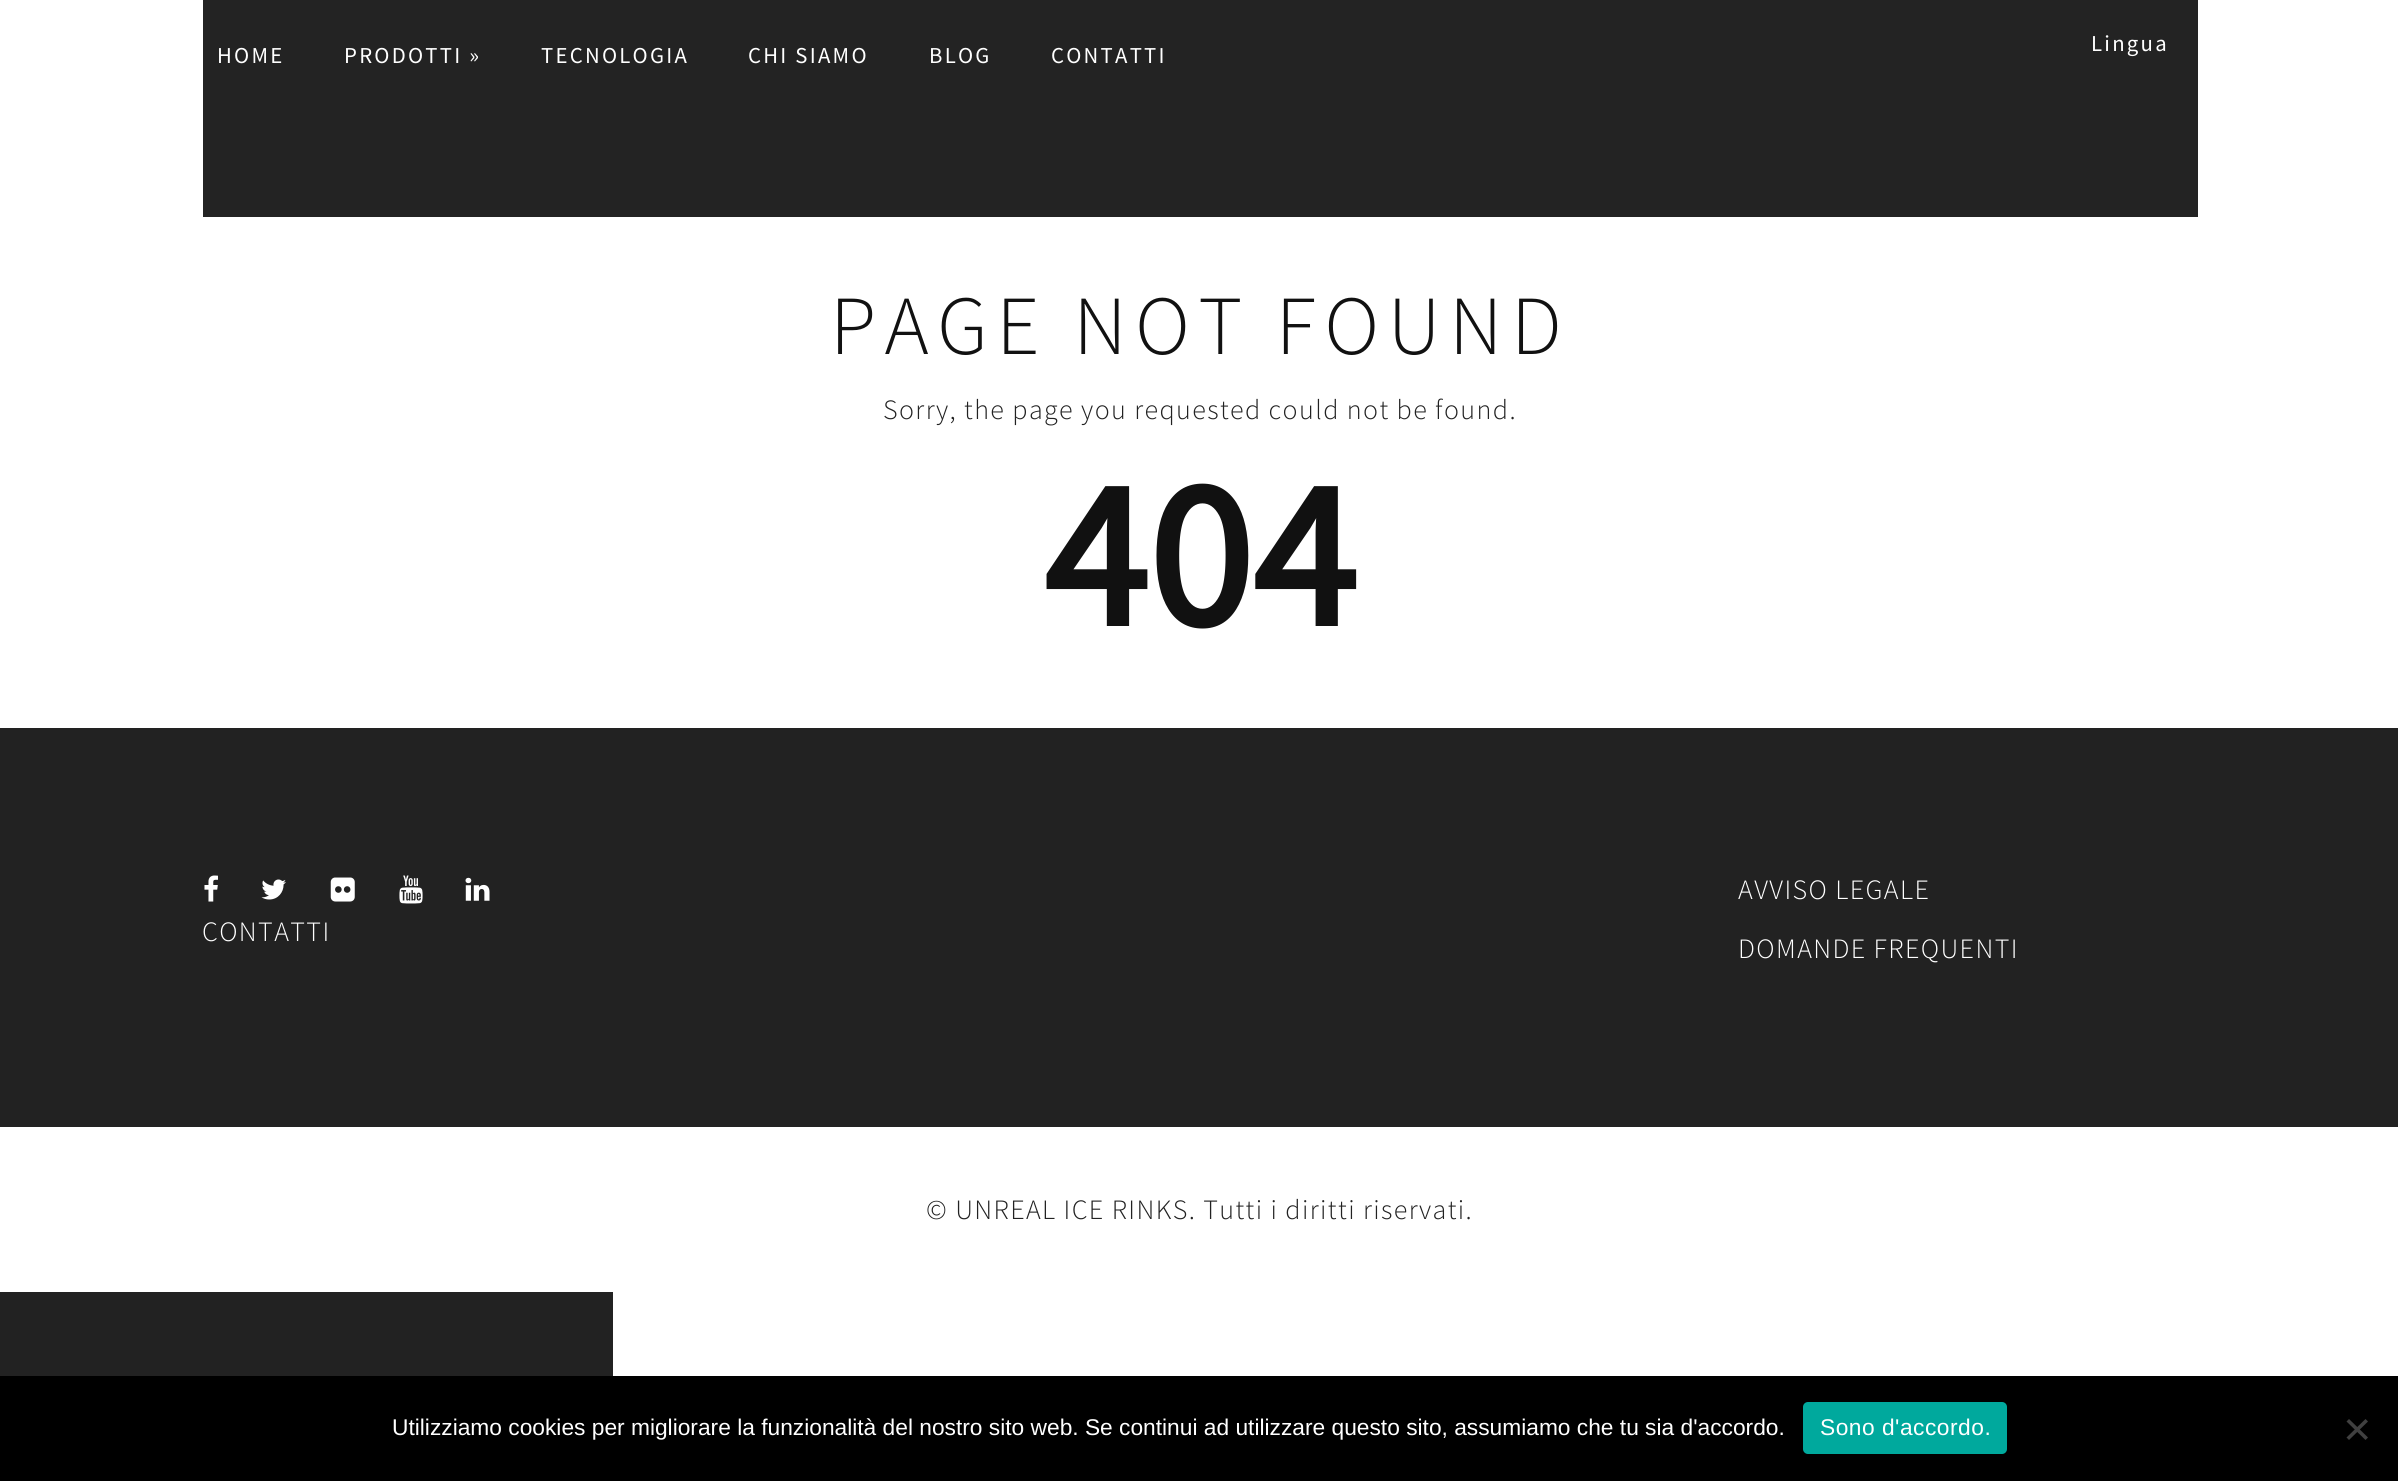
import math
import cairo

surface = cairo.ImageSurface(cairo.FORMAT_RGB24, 2398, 1481)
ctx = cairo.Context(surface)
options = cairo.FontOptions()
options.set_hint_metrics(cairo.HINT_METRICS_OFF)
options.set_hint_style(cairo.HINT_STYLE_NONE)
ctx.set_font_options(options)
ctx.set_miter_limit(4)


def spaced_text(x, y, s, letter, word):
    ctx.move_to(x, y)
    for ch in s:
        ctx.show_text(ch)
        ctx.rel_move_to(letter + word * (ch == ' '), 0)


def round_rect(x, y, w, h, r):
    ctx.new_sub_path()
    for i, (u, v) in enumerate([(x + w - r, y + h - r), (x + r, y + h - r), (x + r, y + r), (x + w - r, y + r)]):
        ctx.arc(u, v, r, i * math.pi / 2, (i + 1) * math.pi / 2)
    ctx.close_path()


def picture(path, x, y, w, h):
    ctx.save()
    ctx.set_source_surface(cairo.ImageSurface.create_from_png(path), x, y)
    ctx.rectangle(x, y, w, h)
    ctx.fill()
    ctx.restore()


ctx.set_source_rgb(1, 1, 1)
ctx.paint()
ctx.set_source_rgb(0.137, 0.137, 0.137)
ctx.rectangle(203, 0, 1995, 217)
ctx.fill()
ctx.select_font_face("Source Sans Pro")
ctx.set_font_size(22.75)
ctx.set_source_rgb(1, 1, 1)
spaced_text(217, 63, "HOME", 2.25, 0)
spaced_text(344, 63, "PRODOTTI »", 2.25, 0)
spaced_text(541, 63, "TECNOLOGIA", 2.25, 0)
spaced_text(748, 63, "CHI SIAMO", 2.25, 0)
spaced_text(929, 63, "BLOG", 2.25, 0)
spaced_text(1051, 63, "CONTATTI", 2.25, 0)
spaced_text(2091, 51, "Lingua", 2.25, 0)
ctx.select_font_face("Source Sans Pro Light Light")
ctx.set_font_size(84)
ctx.set_source_rgb(0.067, 0.067, 0.067)
spaced_text(830, 354, "PAGE NOT FOUND", 8.4, 0)
ctx.set_font_size(28)
ctx.set_source_rgb(0.133, 0.133, 0.133)
spaced_text(883, 419, "Sorry, the page you requested could not be found.", 1.4, 0)
ctx.select_font_face("Source Sans Pro", cairo.FONT_SLANT_NORMAL, cairo.FONT_WEIGHT_BOLD)
ctx.set_font_size(210)
ctx.set_source_rgb(0.067, 0.067, 0.067)
ctx.move_to(1043, 626)
ctx.show_text("404")
ctx.set_source_rgb(0.133, 0.133, 0.133)
ctx.rectangle(0, 728, 2398, 399)
ctx.fill()
picture("img1.png", 204, 875, 14, 27)
picture("img2.png", 261, 879, 25, 21)
picture("img3.png", 330, 877, 25, 25)
picture("img4.png", 399, 875, 24, 29)
picture("img5.png", 465, 877, 25, 24)
ctx.select_font_face("Source Sans Pro Light Light")
ctx.set_font_size(28)
ctx.set_source_rgb(1, 1, 1)
spaced_text(202, 941, "CONTATTI", 1.4, 0)
spaced_text(1738, 899, "AVVISO LEGALE", 1.4, 0)
spaced_text(1738, 958, "DOMANDE FREQUENTI", 1.4, 0)
ctx.set_source_rgb(0.133, 0.133, 0.133)
spaced_text(926, 1219, "© UNREAL ICE RINKS. Tutti i diritti riservati.", 1.4, 0)
ctx.rectangle(0, 1292, 613, 84)
ctx.fill()
ctx.set_source_rgb(0, 0, 0)
ctx.rectangle(0, 1376, 2398, 105)
ctx.fill()
ctx.select_font_face("Liberation Sans")
ctx.set_font_size(22.75)
ctx.set_source_rgb(1, 1, 1)
ctx.move_to(392, 1435)
ctx.show_text("Utilizziamo cookies per migliorare la funzionalità del nostro sito web. Se continui ad utilizzare questo sito, assumiamo che tu sia d'accordo.")
ctx.set_source_rgb(0, 0.663, 0.616)
round_rect(1803, 1402, 204, 52, 5)
ctx.fill()
ctx.set_source_rgb(1, 1, 1)
spaced_text(1820, 1435, "Sono d'accordo.", 0.5, 0)
ctx.set_source_rgb(0.251, 0.251, 0.251)
ctx.new_path()
ctx.move_to(2365.5, 1419)
ctx.line_to(2368, 1421.5)
ctx.line_to(2349, 1440)
ctx.line_to(2346.5, 1437.5)
ctx.close_path()
ctx.fill()
ctx.new_path()
ctx.move_to(2346.5, 1421.5)
ctx.line_to(2349, 1419)
ctx.line_to(2368, 1437.5)
ctx.line_to(2365.5, 1440)
ctx.close_path()
ctx.fill()
surface.write_to_png("page.png")
